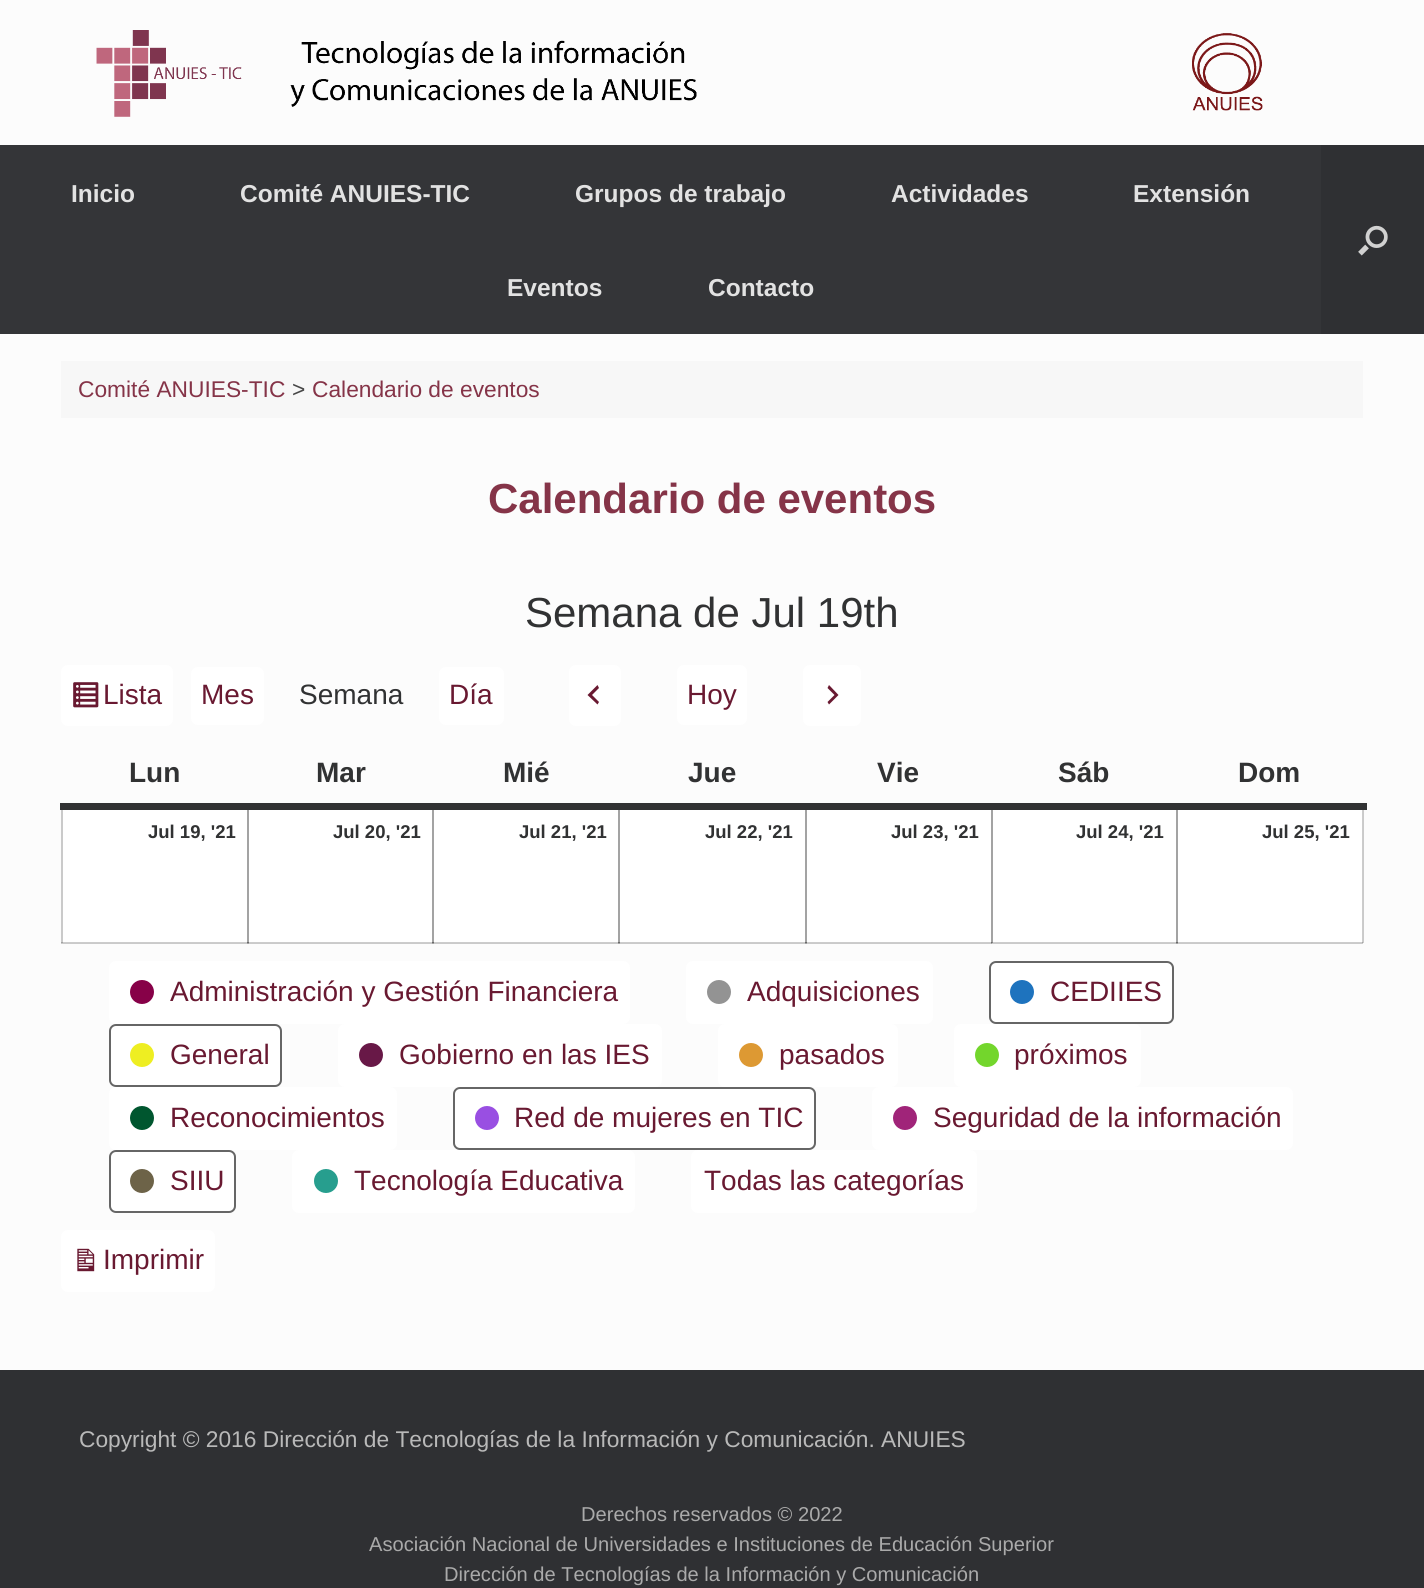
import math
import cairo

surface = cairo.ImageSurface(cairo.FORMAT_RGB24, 1424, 1588)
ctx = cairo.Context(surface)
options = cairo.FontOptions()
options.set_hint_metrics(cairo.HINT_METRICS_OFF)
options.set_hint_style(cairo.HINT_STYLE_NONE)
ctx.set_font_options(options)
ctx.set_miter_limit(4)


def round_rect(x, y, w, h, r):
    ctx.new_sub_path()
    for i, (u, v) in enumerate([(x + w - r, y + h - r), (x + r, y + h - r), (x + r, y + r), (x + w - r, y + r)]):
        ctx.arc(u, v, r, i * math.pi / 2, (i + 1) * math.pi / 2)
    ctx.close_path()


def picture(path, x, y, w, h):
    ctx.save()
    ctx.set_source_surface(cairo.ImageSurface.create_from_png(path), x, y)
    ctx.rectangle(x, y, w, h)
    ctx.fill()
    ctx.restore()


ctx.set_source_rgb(0.184, 0.188, 0.2)
ctx.paint()
ctx.set_source_rgb(0.988, 0.988, 0.988)
ctx.rectangle(0, 0, 1424, 145)
ctx.fill()
picture("img1.png", 96, 30, 1167, 87)
ctx.set_source_rgb(0.204, 0.208, 0.22)
ctx.rectangle(0, 145, 1321, 189)
ctx.fill()
ctx.select_font_face("Liberation Sans", cairo.FONT_SLANT_NORMAL, cairo.FONT_WEIGHT_BOLD)
ctx.set_font_size(24.5)
ctx.set_source_rgb(0.886, 0.886, 0.886)
ctx.move_to(71, 202)
ctx.show_text("Inicio")
ctx.move_to(240, 202)
ctx.show_text("Comité ANUIES-TIC")
ctx.move_to(575, 202)
ctx.show_text("Grupos de trabajo")
ctx.move_to(891, 202)
ctx.show_text("Actividades")
ctx.move_to(1133, 202)
ctx.show_text("Extensión")
ctx.move_to(507, 296)
ctx.show_text("Eventos")
ctx.move_to(708, 296)
ctx.show_text("Contacto")
picture("img2.png", 1358, 225, 30, 31)
ctx.set_source_rgb(0.988, 0.988, 0.988)
ctx.rectangle(0, 334, 1424, 1036)
ctx.fill()
ctx.set_source_rgb(0.792, 0.792, 0.792)
ctx.rectangle(61, 805, 2, 138)
ctx.fill()
ctx.rectangle(61, 943, 1302, 1)
ctx.fill()
ctx.set_source_rgb(0.635, 0.635, 0.635)
ctx.rectangle(61, 942, 2, 1)
ctx.fill()
ctx.rectangle(247, 943, 2, 1)
ctx.fill()
ctx.rectangle(432, 943, 2, 1)
ctx.fill()
ctx.rectangle(618, 943, 2, 1)
ctx.fill()
ctx.rectangle(805, 943, 2, 1)
ctx.fill()
ctx.rectangle(991, 942, 1, 2)
ctx.fill()
ctx.rectangle(1176, 943, 2, 1)
ctx.fill()
ctx.set_source_rgb(0.792, 0.792, 0.792)
ctx.rectangle(1363, 805, 1, 138)
ctx.fill()
ctx.set_source_rgb(0.965, 0.965, 0.965)
ctx.rectangle(61, 361, 1302, 57)
ctx.fill()
ctx.select_font_face("Liberation Sans")
ctx.set_font_size(22.75)
ctx.set_source_rgb(0.522, 0.204, 0.282)
ctx.move_to(78, 397)
ctx.show_text("Comité ANUIES-TIC")
ctx.set_source_rgb(0.278, 0.278, 0.278)
ctx.move_to(292, 397)
ctx.show_text(">")
ctx.set_source_rgb(0.522, 0.204, 0.282)
ctx.move_to(312, 397)
ctx.show_text("Calendario de eventos")
ctx.select_font_face("Liberation Sans", cairo.FONT_SLANT_NORMAL, cairo.FONT_WEIGHT_BOLD)
ctx.set_font_size(42)
ctx.move_to(488, 513)
ctx.show_text("Calendario de eventos")
ctx.select_font_face("Liberation Sans")
ctx.set_source_rgb(0.192, 0.196, 0.2)
ctx.move_to(525, 627)
ctx.show_text("Semana de Jul 19th")
ctx.set_source_rgb(1, 1, 1)
round_rect(61, 665, 112, 61, 7)
ctx.fill()
picture("img3.png", 73, 682, 26, 26)
ctx.set_font_size(28)
ctx.set_source_rgb(0.412, 0.098, 0.192)
ctx.move_to(103, 704)
ctx.show_text("Lista")
ctx.set_source_rgb(1, 1, 1)
round_rect(191, 667, 73, 58, 7)
ctx.fill()
ctx.set_source_rgb(0.412, 0.098, 0.192)
ctx.move_to(201, 704)
ctx.show_text("Mes")
ctx.set_source_rgb(0.192, 0.196, 0.2)
ctx.move_to(299, 704)
ctx.show_text("Semana")
ctx.set_source_rgb(1, 1, 1)
round_rect(439, 667, 65, 58, 7)
ctx.fill()
ctx.set_source_rgb(0.412, 0.098, 0.192)
ctx.move_to(449, 704)
ctx.show_text("Día")
ctx.set_source_rgb(1, 1, 1)
round_rect(569, 665, 52, 61, 7)
ctx.fill()
ctx.set_source_rgb(0.412, 0.098, 0.192)
ctx.new_path()
ctx.move_to(599, 688)
ctx.line_to(592, 695)
ctx.line_to(599, 702)
ctx.line_to(597.5, 704.5)
ctx.line_to(587.5, 695)
ctx.line_to(597.5, 685)
ctx.close_path()
ctx.fill()
ctx.set_source_rgb(1, 1, 1)
round_rect(677, 665, 70, 60, 7)
ctx.fill()
ctx.set_source_rgb(0.412, 0.098, 0.192)
ctx.move_to(687, 704)
ctx.show_text("Hoy")
ctx.set_source_rgb(1, 1, 1)
round_rect(803, 665, 58, 61, 7)
ctx.fill()
ctx.set_source_rgb(0.412, 0.098, 0.192)
ctx.new_path()
ctx.move_to(827.5, 702)
ctx.line_to(834.5, 695)
ctx.line_to(827.5, 688)
ctx.line_to(829, 685)
ctx.line_to(838.5, 695)
ctx.line_to(829, 704.5)
ctx.close_path()
ctx.fill()
ctx.set_source_rgb(1, 1, 1)
ctx.rectangle(63, 810, 1299, 132)
ctx.fill()
ctx.set_source_rgb(0.8, 0.8, 0.8)
ctx.rectangle(63, 942, 186, 1)
ctx.fill()
ctx.set_source_rgb(0.639, 0.639, 0.639)
ctx.rectangle(247, 807, 2, 136)
ctx.fill()
ctx.set_source_rgb(0.8, 0.8, 0.8)
ctx.rectangle(247, 942, 187, 1)
ctx.fill()
ctx.set_source_rgb(0.639, 0.639, 0.639)
ctx.rectangle(432, 807, 2, 136)
ctx.fill()
ctx.set_source_rgb(0.8, 0.8, 0.8)
ctx.rectangle(432, 942, 188, 1)
ctx.fill()
ctx.set_source_rgb(0.639, 0.639, 0.639)
ctx.rectangle(618, 807, 2, 136)
ctx.fill()
ctx.set_source_rgb(0.8, 0.8, 0.8)
ctx.rectangle(618, 942, 189, 1)
ctx.fill()
ctx.set_source_rgb(0.639, 0.639, 0.639)
ctx.rectangle(805, 807, 2, 136)
ctx.fill()
ctx.set_source_rgb(0.8, 0.8, 0.8)
ctx.rectangle(805, 942, 187, 1)
ctx.fill()
ctx.set_source_rgb(0.639, 0.639, 0.639)
ctx.rectangle(991, 807, 2, 136)
ctx.fill()
ctx.set_source_rgb(0.8, 0.8, 0.8)
ctx.rectangle(991, 942, 187, 1)
ctx.fill()
ctx.set_source_rgb(0.639, 0.639, 0.639)
ctx.rectangle(1176, 807, 2, 136)
ctx.fill()
ctx.set_source_rgb(0.8, 0.8, 0.8)
ctx.rectangle(1176, 942, 187, 1)
ctx.fill()
ctx.rectangle(1362, 807, 1, 136)
ctx.fill()
ctx.set_source_rgb(0.192, 0.196, 0.2)
ctx.rectangle(60, 803, 1307, 7)
ctx.fill()
ctx.select_font_face("Liberation Sans", cairo.FONT_SLANT_NORMAL, cairo.FONT_WEIGHT_BOLD)
ctx.move_to(129, 782)
ctx.show_text("Lun")
ctx.move_to(316, 782)
ctx.show_text("Mar")
ctx.move_to(503, 782)
ctx.show_text("Mié")
ctx.move_to(688, 782)
ctx.show_text("Jue")
ctx.move_to(877, 782)
ctx.show_text("Vie")
ctx.move_to(1058, 782)
ctx.show_text("Sáb")
ctx.move_to(1238, 782)
ctx.show_text("Dom")
ctx.set_source_rgb(0.408, 0.408, 0.408)
ctx.rectangle(247, 942, 2, 1)
ctx.fill()
ctx.rectangle(432, 942, 2, 1)
ctx.fill()
ctx.rectangle(618, 942, 2, 1)
ctx.fill()
ctx.rectangle(805, 942, 2, 1)
ctx.fill()
ctx.set_source_rgb(0.51, 0.51, 0.51)
ctx.rectangle(991, 942, 2, 1)
ctx.fill()
ctx.set_source_rgb(0.408, 0.408, 0.408)
ctx.rectangle(991, 942, 1, 1)
ctx.fill()
ctx.rectangle(1176, 942, 2, 1)
ctx.fill()
ctx.set_source_rgb(0.639, 0.639, 0.639)
ctx.rectangle(1362, 942, 1, 1)
ctx.fill()
ctx.set_font_size(18.5)
ctx.set_source_rgb(0.192, 0.196, 0.2)
ctx.move_to(148, 838)
ctx.show_text("Jul 19, '21")
ctx.move_to(333, 838)
ctx.show_text("Jul 20, '21")
ctx.move_to(519, 838)
ctx.show_text("Jul 21, '21")
ctx.move_to(705, 838)
ctx.show_text("Jul 22, '21")
ctx.move_to(891, 838)
ctx.show_text("Jul 23, '21")
ctx.move_to(1076, 838)
ctx.show_text("Jul 24, '21")
ctx.move_to(1262, 838)
ctx.show_text("Jul 25, '21")
ctx.set_source_rgb(1, 1, 1)
round_rect(109, 961, 521, 63, 7)
ctx.fill()
ctx.set_source_rgb(0.529, 0.004, 0.282)
ctx.arc(142, 992, 13, 0, 2 * math.pi)
ctx.fill_preserve()
ctx.set_source_rgb(1, 1, 1)
ctx.stroke()
ctx.select_font_face("Liberation Sans")
ctx.set_font_size(28)
ctx.set_source_rgb(0.412, 0.098, 0.192)
ctx.move_to(170, 1001)
ctx.show_text("Administración y Gestión Financiera")
ctx.set_source_rgb(1, 1, 1)
round_rect(686, 961, 247, 63, 7)
ctx.fill()
ctx.set_source_rgb(0.576, 0.576, 0.576)
ctx.arc(719, 992, 13, 0, 2 * math.pi)
ctx.fill_preserve()
ctx.set_source_rgb(1, 1, 1)
ctx.stroke()
ctx.set_source_rgb(0.412, 0.098, 0.192)
ctx.move_to(747, 1001)
ctx.show_text("Adquisiciones")
ctx.set_source_rgb(1, 1, 1)
round_rect(990, 962, 183, 61, 6)
ctx.fill_preserve()
ctx.set_source_rgb(0.4, 0.4, 0.4)
ctx.stroke()
ctx.set_source_rgb(0.118, 0.451, 0.745)
ctx.arc(1022, 992, 13, 0, 2 * math.pi)
ctx.fill_preserve()
ctx.set_source_rgb(1, 1, 1)
ctx.stroke()
ctx.set_source_rgb(0.412, 0.098, 0.192)
ctx.move_to(1050, 1001)
ctx.show_text("CEDIIES")
ctx.set_source_rgb(1, 1, 1)
round_rect(110, 1025, 171, 61, 6)
ctx.fill_preserve()
ctx.set_source_rgb(0.4, 0.4, 0.4)
ctx.stroke()
ctx.set_source_rgb(0.933, 0.933, 0.133)
ctx.arc(142, 1055, 13, 0, 2 * math.pi)
ctx.fill_preserve()
ctx.set_source_rgb(1, 1, 1)
ctx.stroke()
ctx.set_source_rgb(0.412, 0.098, 0.192)
ctx.move_to(170, 1064)
ctx.show_text("General")
ctx.set_source_rgb(1, 1, 1)
round_rect(338, 1024, 324, 63, 7)
ctx.fill()
ctx.set_source_rgb(0.408, 0.094, 0.278)
ctx.arc(371, 1055, 13, 0, 2 * math.pi)
ctx.fill_preserve()
ctx.set_source_rgb(1, 1, 1)
ctx.stroke()
ctx.set_source_rgb(0.412, 0.098, 0.192)
ctx.move_to(399, 1064)
ctx.show_text("Gobierno en las IES")
ctx.set_source_rgb(1, 1, 1)
round_rect(718, 1024, 180, 63, 7)
ctx.fill()
ctx.set_source_rgb(0.867, 0.6, 0.2)
ctx.arc(751, 1055, 13, 0, 2 * math.pi)
ctx.fill_preserve()
ctx.set_source_rgb(1, 1, 1)
ctx.stroke()
ctx.set_source_rgb(0.412, 0.098, 0.192)
ctx.move_to(779, 1064)
ctx.show_text("pasados")
ctx.set_source_rgb(1, 1, 1)
round_rect(954, 1024, 187, 63, 7)
ctx.fill()
ctx.set_source_rgb(0.451, 0.839, 0.173)
ctx.arc(987, 1055, 13, 0, 2 * math.pi)
ctx.fill_preserve()
ctx.set_source_rgb(1, 1, 1)
ctx.stroke()
ctx.set_source_rgb(0.412, 0.098, 0.192)
ctx.move_to(1014, 1064)
ctx.show_text("próximos")
ctx.set_source_rgb(1, 1, 1)
round_rect(109, 1087, 288, 63, 7)
ctx.fill()
ctx.set_source_rgb(0, 0.337, 0.184)
ctx.arc(142, 1118, 13, 0, 2 * math.pi)
ctx.fill_preserve()
ctx.set_source_rgb(1, 1, 1)
ctx.stroke()
ctx.set_source_rgb(0.412, 0.098, 0.192)
ctx.move_to(170, 1127)
ctx.show_text("Reconocimientos")
ctx.set_source_rgb(1, 1, 1)
round_rect(454, 1088, 361, 61, 6)
ctx.fill_preserve()
ctx.set_source_rgb(0.4, 0.4, 0.4)
ctx.stroke()
ctx.set_source_rgb(0.6, 0.31, 0.886)
ctx.arc(487, 1118, 13, 0, 2 * math.pi)
ctx.fill_preserve()
ctx.set_source_rgb(1, 1, 1)
ctx.stroke()
ctx.set_source_rgb(0.412, 0.098, 0.192)
ctx.move_to(514, 1127)
ctx.show_text("Red de mujeres en TIC")
ctx.set_source_rgb(1, 1, 1)
round_rect(872, 1087, 421, 63, 7)
ctx.fill()
ctx.set_source_rgb(0.627, 0.141, 0.475)
ctx.arc(905, 1118, 13, 0, 2 * math.pi)
ctx.fill_preserve()
ctx.set_source_rgb(1, 1, 1)
ctx.stroke()
ctx.set_source_rgb(0.412, 0.098, 0.192)
ctx.move_to(933, 1127)
ctx.show_text("Seguridad de la información")
ctx.set_source_rgb(1, 1, 1)
round_rect(110, 1151, 125, 61, 6)
ctx.fill_preserve()
ctx.set_source_rgb(0.4, 0.4, 0.4)
ctx.stroke()
ctx.set_source_rgb(0.427, 0.388, 0.282)
ctx.arc(142, 1181, 13, 0, 2 * math.pi)
ctx.fill_preserve()
ctx.set_source_rgb(1, 1, 1)
ctx.stroke()
ctx.set_source_rgb(0.412, 0.098, 0.192)
ctx.move_to(170, 1190)
ctx.show_text("SIIU")
ctx.set_source_rgb(1, 1, 1)
round_rect(292, 1150, 343, 63, 7)
ctx.fill()
ctx.set_source_rgb(0.153, 0.62, 0.557)
ctx.arc(326, 1181, 13, 0, 2 * math.pi)
ctx.fill_preserve()
ctx.set_source_rgb(1, 1, 1)
ctx.stroke()
ctx.set_source_rgb(0.412, 0.098, 0.192)
ctx.move_to(354, 1190)
ctx.show_text("Tecnología Educativa")
ctx.set_source_rgb(1, 1, 1)
round_rect(691, 1150, 286, 63, 7)
ctx.fill()
ctx.set_source_rgb(0.412, 0.098, 0.192)
ctx.move_to(704, 1190)
ctx.show_text("Todas las categorías")
ctx.set_source_rgb(1, 1, 1)
round_rect(61, 1230, 154, 62, 7)
ctx.fill()
picture("img4.png", 77, 1248, 18, 24)
ctx.set_source_rgb(0.412, 0.098, 0.192)
ctx.move_to(103, 1269)
ctx.show_text("Imprimir")
ctx.set_font_size(22.75)
ctx.set_source_rgb(0.725, 0.725, 0.725)
ctx.move_to(79, 1447)
ctx.show_text("Copyright © 2016 Dirección de Tecnologías de la Información y Comunicación. ANUIES")
ctx.set_font_size(20.1)
ctx.set_source_rgb(0.667, 0.667, 0.667)
ctx.move_to(581, 1521)
ctx.show_text("Derechos reservados © 2022")
ctx.move_to(369, 1551)
ctx.show_text("Asociación Nacional de Universidades e Instituciones de Educación Superior")
ctx.move_to(444, 1581)
ctx.show_text("Dirección de Tecnologías de la Información y Comunicación")
surface.write_to_png("page.png")
